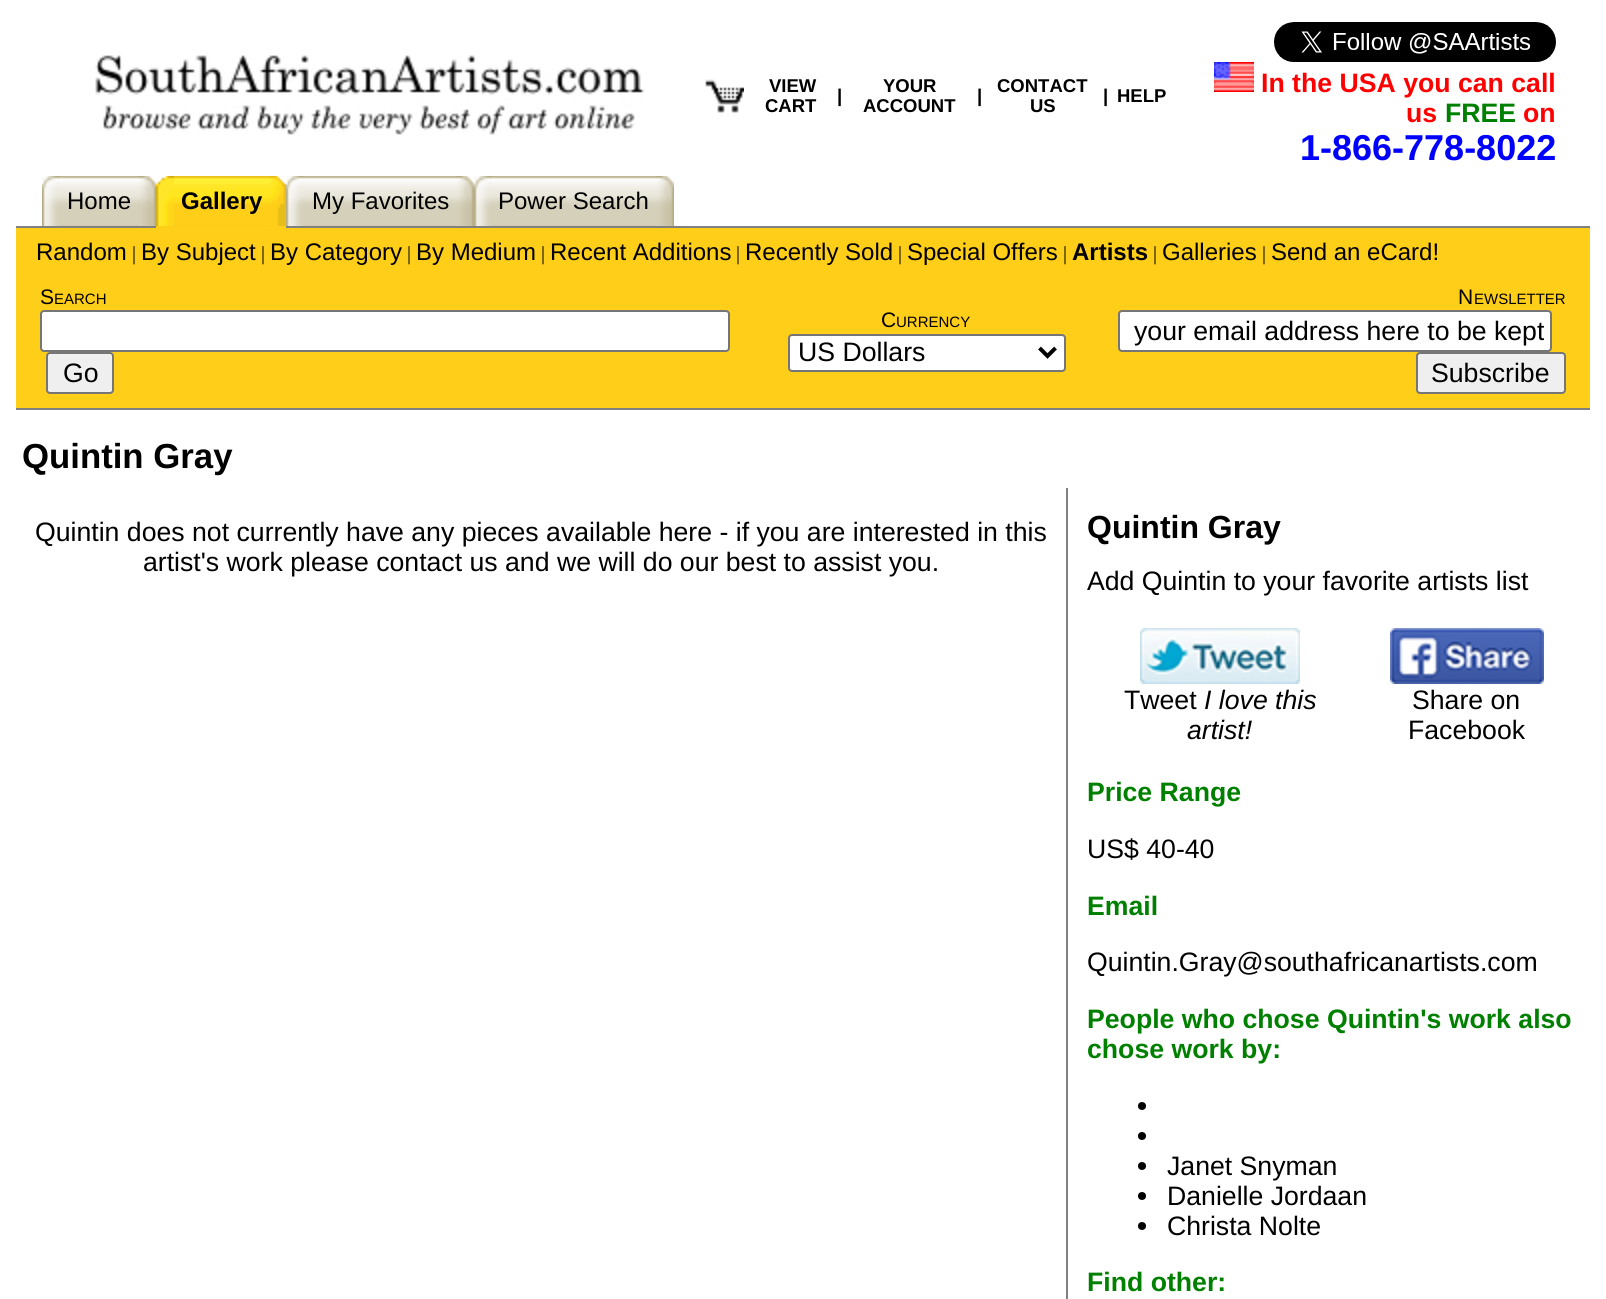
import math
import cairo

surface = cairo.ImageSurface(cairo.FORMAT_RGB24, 1606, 1299)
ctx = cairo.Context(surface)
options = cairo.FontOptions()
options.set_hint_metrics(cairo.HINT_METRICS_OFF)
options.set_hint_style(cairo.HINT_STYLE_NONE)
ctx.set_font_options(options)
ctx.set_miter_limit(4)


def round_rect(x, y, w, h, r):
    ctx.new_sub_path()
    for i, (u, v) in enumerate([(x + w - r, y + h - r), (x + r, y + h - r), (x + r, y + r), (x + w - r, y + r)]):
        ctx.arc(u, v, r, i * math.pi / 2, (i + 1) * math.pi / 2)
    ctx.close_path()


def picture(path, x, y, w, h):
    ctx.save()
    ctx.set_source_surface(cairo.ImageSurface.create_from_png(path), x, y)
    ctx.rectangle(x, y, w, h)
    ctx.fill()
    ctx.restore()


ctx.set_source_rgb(1, 1, 1)
ctx.paint()
picture("img1.png", 95, 55, 550, 80)
picture("img2.png", 705, 79, 39, 34)
ctx.select_font_face("Liberation Sans", cairo.FONT_SLANT_NORMAL, cairo.FONT_WEIGHT_BOLD)
ctx.set_font_size(18.5)
ctx.set_source_rgb(0, 0, 0)
ctx.move_to(769, 92)
ctx.show_text("VIEW")
ctx.move_to(765, 112)
ctx.show_text("CART")
ctx.move_to(837, 102)
ctx.show_text("|")
ctx.move_to(883, 92)
ctx.show_text("YOUR")
ctx.move_to(863, 112)
ctx.show_text("ACCOUNT")
ctx.move_to(977, 102)
ctx.show_text("|")
ctx.move_to(997, 92)
ctx.show_text("CONTACT")
ctx.move_to(1030, 112)
ctx.show_text("US")
ctx.move_to(1103, 102)
ctx.show_text("|")
ctx.move_to(1117, 102)
ctx.show_text("HELP")
picture("img3.png", 1274, 22, 282, 40)
picture("img4.png", 1214, 62, 40, 30)
ctx.set_font_size(26.65)
ctx.set_source_rgb(1, 0, 0)
ctx.move_to(1261, 92)
ctx.show_text("In the USA you can call")
ctx.move_to(1406, 122)
ctx.show_text("us")
ctx.set_source_rgb(0, 0.502, 0)
ctx.move_to(1445, 122)
ctx.show_text("FREE")
ctx.set_source_rgb(1, 0, 0)
ctx.move_to(1523, 122)
ctx.show_text("on")
ctx.set_font_size(36)
ctx.set_source_rgb(0, 0, 1)
ctx.move_to(1300, 160)
ctx.show_text("1-866-778-8022")
picture("img5.png", 42, 176, 18, 50)
picture("img6.png", 138, 176, 18, 50)
ctx.set_source_rgb(1, 0.808, 0.098)
ctx.rectangle(156, 226, 130, 2)
ctx.fill()
picture("img7.png", 156, 176, 18, 50)
picture("img8.png", 268, 176, 18, 50)
ctx.set_source_rgb(0.502, 0.502, 0.502)
ctx.rectangle(286, 226, 1304, 2)
ctx.fill()
picture("img5.png", 286, 176, 18, 50)
picture("img9.png", 60, 176, 78, 50)
ctx.select_font_face("Liberation Sans")
ctx.set_font_size(24)
ctx.set_source_rgb(0, 0, 0)
ctx.move_to(67, 209)
ctx.show_text("Home")
picture("img10.png", 174, 176, 94, 50)
ctx.select_font_face("Liberation Sans", cairo.FONT_SLANT_NORMAL, cairo.FONT_WEIGHT_BOLD)
ctx.move_to(181, 209)
ctx.show_text("Gallery")
picture("img11.png", 304, 176, 152, 50)
ctx.select_font_face("Liberation Sans")
ctx.move_to(312, 209)
ctx.show_text("My Favorites")
picture("img6.png", 456, 176, 18, 50)
picture("img5.png", 474, 176, 18, 50)
picture("img12.png", 492, 176, 164, 50)
ctx.move_to(498, 209)
ctx.show_text("Power Search")
picture("img6.png", 656, 176, 18, 50)
ctx.set_source_rgb(0.502, 0.502, 0.502)
ctx.rectangle(16, 226, 140, 2)
ctx.fill()
ctx.set_source_rgb(1, 0.808, 0.098)
ctx.rectangle(16, 228, 1574, 180)
ctx.fill()
ctx.set_source_rgb(0, 0, 0)
ctx.move_to(36, 260)
ctx.show_text("Random")
ctx.select_font_face("Liberation Serif")
ctx.set_font_size(20)
ctx.move_to(132, 260)
ctx.show_text("|")
ctx.select_font_face("Liberation Sans")
ctx.set_font_size(24)
ctx.move_to(141, 260)
ctx.show_text("By Subject")
ctx.select_font_face("Liberation Serif")
ctx.set_font_size(20)
ctx.move_to(261, 260)
ctx.show_text("|")
ctx.select_font_face("Liberation Sans")
ctx.set_font_size(24)
ctx.move_to(270, 260)
ctx.show_text("By Category")
ctx.select_font_face("Liberation Serif")
ctx.set_font_size(20)
ctx.move_to(407, 260)
ctx.show_text("|")
ctx.select_font_face("Liberation Sans")
ctx.set_font_size(24)
ctx.move_to(416, 260)
ctx.show_text("By Medium")
ctx.select_font_face("Liberation Serif")
ctx.set_font_size(20)
ctx.move_to(541, 260)
ctx.show_text("|")
ctx.select_font_face("Liberation Sans")
ctx.set_font_size(24)
ctx.move_to(550, 260)
ctx.show_text("Recent Additions")
ctx.select_font_face("Liberation Serif")
ctx.set_font_size(20)
ctx.move_to(736, 260)
ctx.show_text("|")
ctx.select_font_face("Liberation Sans")
ctx.set_font_size(24)
ctx.move_to(745, 260)
ctx.show_text("Recently Sold")
ctx.select_font_face("Liberation Serif")
ctx.set_font_size(20)
ctx.move_to(898, 260)
ctx.show_text("|")
ctx.select_font_face("Liberation Sans")
ctx.set_font_size(24)
ctx.move_to(907, 260)
ctx.show_text("Special Offers")
ctx.select_font_face("Liberation Serif")
ctx.set_font_size(20)
ctx.move_to(1063, 260)
ctx.show_text("|")
ctx.select_font_face("Liberation Sans", cairo.FONT_SLANT_NORMAL, cairo.FONT_WEIGHT_BOLD)
ctx.set_font_size(24)
ctx.move_to(1072, 260)
ctx.show_text("Artists")
ctx.select_font_face("Liberation Serif")
ctx.set_font_size(20)
ctx.move_to(1153, 260)
ctx.show_text("|")
ctx.select_font_face("Liberation Sans")
ctx.set_font_size(24)
ctx.move_to(1162, 260)
ctx.show_text("Galleries")
ctx.select_font_face("Liberation Serif")
ctx.set_font_size(20)
ctx.move_to(1262, 260)
ctx.show_text("|")
ctx.select_font_face("Liberation Sans")
ctx.set_font_size(24)
ctx.move_to(1271, 260)
ctx.show_text("Send an eCard!")
ctx.set_source_rgb(0.502, 0.502, 0.502)
ctx.rectangle(16, 408, 1574, 2)
ctx.fill()
ctx.set_font_size(21)
ctx.set_source_rgb(0, 0, 0)
ctx.move_to(40, 304)
ctx.show_text("S")
ctx.set_font_size(15)
ctx.move_to(54, 304)
ctx.show_text("EARCH")
ctx.set_source_rgb(1, 1, 1)
round_rect(41, 311, 688, 40, 3)
ctx.fill_preserve()
ctx.set_source_rgb(0.463, 0.463, 0.463)
ctx.stroke()
ctx.set_source_rgb(0.937, 0.937, 0.937)
round_rect(47, 353, 66, 40, 3)
ctx.fill_preserve()
ctx.set_source_rgb(0.463, 0.463, 0.463)
ctx.stroke()
ctx.set_font_size(26.65)
ctx.set_source_rgb(0, 0, 0)
ctx.move_to(63, 382)
ctx.show_text("Go")
ctx.set_font_size(21)
ctx.move_to(881, 327)
ctx.show_text("C")
ctx.set_font_size(15)
ctx.move_to(896, 327)
ctx.show_text("URRENCY")
ctx.set_source_rgb(1, 1, 1)
round_rect(789, 335, 276, 36, 3)
ctx.fill_preserve()
ctx.set_source_rgb(0.463, 0.463, 0.463)
ctx.stroke()
ctx.new_path()
ctx.move_to(1039.5, 348)
ctx.line_to(1047.5, 356)
ctx.line_to(1055.5, 348)
ctx.set_source_rgb(0, 0, 0)
ctx.set_line_width(4)
ctx.stroke()
ctx.set_font_size(26.65)
ctx.move_to(798, 361)
ctx.show_text("US Dollars")
ctx.set_font_size(21)
ctx.move_to(1458, 304)
ctx.show_text("N")
ctx.set_font_size(15)
ctx.move_to(1474, 304)
ctx.show_text("EWSLETTER")
ctx.set_source_rgb(1, 1, 1)
round_rect(1119, 311, 432, 40, 3)
ctx.fill_preserve()
ctx.set_source_rgb(0.463, 0.463, 0.463)
ctx.set_line_width(2)
ctx.stroke()
ctx.save()
ctx.rectangle(1126, 316, 418, 30)
ctx.clip()
ctx.set_font_size(26.65)
ctx.set_source_rgb(0, 0, 0)
ctx.move_to(1134, 340)
ctx.show_text("your email address here to be kept")
ctx.restore()
ctx.set_source_rgb(0.937, 0.937, 0.937)
round_rect(1417, 353, 148, 40, 3)
ctx.fill_preserve()
ctx.set_source_rgb(0.463, 0.463, 0.463)
ctx.stroke()
ctx.set_font_size(26.65)
ctx.set_source_rgb(0, 0, 0)
ctx.move_to(1431, 382)
ctx.show_text("Subscribe")
ctx.select_font_face("Liberation Sans", cairo.FONT_SLANT_NORMAL, cairo.FONT_WEIGHT_BOLD)
ctx.set_font_size(34.75)
ctx.move_to(22, 468)
ctx.show_text("Quintin Gray")
ctx.select_font_face("Liberation Sans")
ctx.set_font_size(26.65)
ctx.move_to(35, 541)
ctx.show_text("Quintin does not currently have any pieces available here - if you are interested in this")
ctx.move_to(143, 571)
ctx.show_text("artist's work please contact us and we will do our best to assist you.")
ctx.set_source_rgb(0.502, 0.502, 0.502)
ctx.rectangle(1066, 488, 2, 811)
ctx.fill()
ctx.select_font_face("Liberation Sans", cairo.FONT_SLANT_NORMAL, cairo.FONT_WEIGHT_BOLD)
ctx.set_font_size(32)
ctx.set_source_rgb(0, 0, 0)
ctx.move_to(1087, 538)
ctx.show_text("Quintin Gray")
ctx.select_font_face("Liberation Sans")
ctx.set_font_size(26.65)
ctx.move_to(1087, 590)
ctx.show_text("Add Quintin to your favorite artists list")
picture("img13.png", 1140, 628, 160, 56)
ctx.move_to(1124, 709)
ctx.show_text("Tweet")
ctx.select_font_face("Liberation Sans", cairo.FONT_SLANT_ITALIC)
ctx.move_to(1204, 709)
ctx.show_text("I love this")
ctx.move_to(1187, 739)
ctx.show_text("artist!")
picture("img14.png", 1390, 628, 154, 56)
ctx.select_font_face("Liberation Sans")
ctx.move_to(1412, 709)
ctx.show_text("Share on")
ctx.move_to(1408, 739)
ctx.show_text("Facebook")
ctx.select_font_face("Liberation Sans", cairo.FONT_SLANT_NORMAL, cairo.FONT_WEIGHT_BOLD)
ctx.set_source_rgb(0, 0.502, 0)
ctx.move_to(1087, 801)
ctx.show_text("Price Range")
ctx.select_font_face("Liberation Sans")
ctx.set_source_rgb(0, 0, 0)
ctx.move_to(1087, 858)
ctx.show_text("US$ 40-40")
ctx.select_font_face("Liberation Sans", cairo.FONT_SLANT_NORMAL, cairo.FONT_WEIGHT_BOLD)
ctx.set_source_rgb(0, 0.502, 0)
ctx.move_to(1087, 915)
ctx.show_text("Email")
ctx.select_font_face("Liberation Sans")
ctx.set_source_rgb(0, 0, 0)
ctx.move_to(1087, 971)
ctx.show_text("Quintin.Gray@southafricanartists.com")
ctx.select_font_face("Liberation Sans", cairo.FONT_SLANT_NORMAL, cairo.FONT_WEIGHT_BOLD)
ctx.set_source_rgb(0, 0.502, 0)
ctx.move_to(1087, 1028)
ctx.show_text("People who chose Quintin's work also")
ctx.move_to(1087, 1058)
ctx.show_text("chose work by:")
ctx.set_source_rgb(0, 0, 0)
ctx.new_path()
ctx.arc(1142, 1106, 4, 0, 2 * math.pi)
ctx.fill()
ctx.arc(1142, 1136, 4, 0, 2 * math.pi)
ctx.fill()
ctx.arc(1142, 1166, 4, 0, 2 * math.pi)
ctx.fill()
ctx.select_font_face("Liberation Sans")
ctx.move_to(1167, 1175)
ctx.show_text("Janet Snyman")
ctx.new_path()
ctx.arc(1142, 1196, 4, 0, 2 * math.pi)
ctx.fill()
ctx.move_to(1167, 1205)
ctx.show_text("Danielle Jordaan")
ctx.new_path()
ctx.arc(1142, 1226, 4, 0, 2 * math.pi)
ctx.fill()
ctx.move_to(1167, 1235)
ctx.show_text("Christa Nolte")
ctx.select_font_face("Liberation Sans", cairo.FONT_SLANT_NORMAL, cairo.FONT_WEIGHT_BOLD)
ctx.set_source_rgb(0, 0.502, 0)
ctx.move_to(1087, 1291)
ctx.show_text("Find other:")
surface.write_to_png("page.png")
